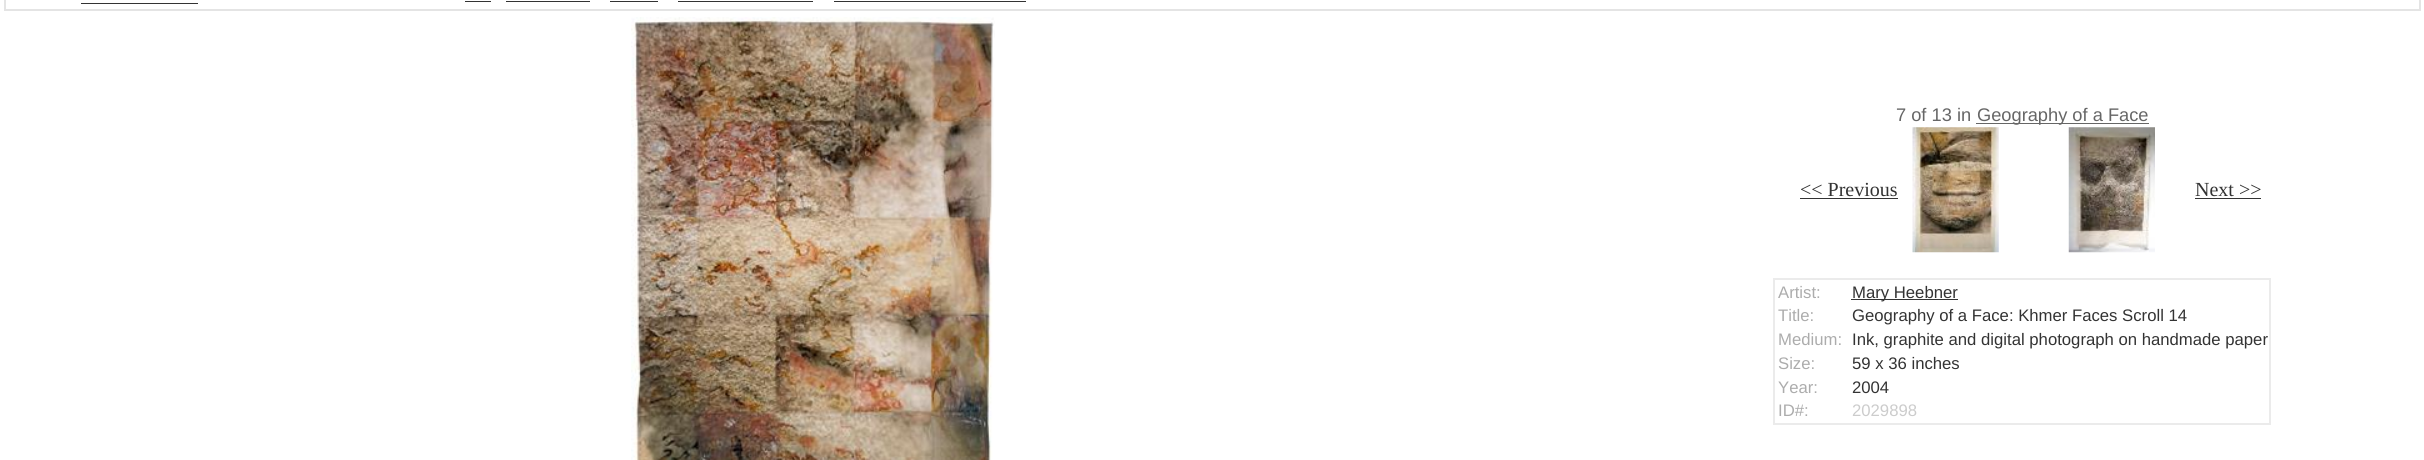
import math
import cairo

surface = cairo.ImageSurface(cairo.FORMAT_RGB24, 2424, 460)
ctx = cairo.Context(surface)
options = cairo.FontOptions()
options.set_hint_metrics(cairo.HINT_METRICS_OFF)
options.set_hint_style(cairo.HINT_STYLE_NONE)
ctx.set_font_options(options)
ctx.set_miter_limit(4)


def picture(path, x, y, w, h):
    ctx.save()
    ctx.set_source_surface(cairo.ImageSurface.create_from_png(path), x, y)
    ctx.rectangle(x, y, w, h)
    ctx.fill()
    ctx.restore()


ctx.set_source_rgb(1, 1, 1)
ctx.paint()
ctx.rectangle(4.5, -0.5, 2416, 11)
ctx.set_source_rgb(0.894, 0.894, 0.894)
ctx.set_line_width(1)
ctx.stroke()
ctx.rectangle(5.5, -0.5, 2414, 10)
ctx.stroke()
ctx.set_source_rgb(0.2, 0.2, 0.2)
ctx.rectangle(465, 1, 26, 1)
ctx.fill()
ctx.rectangle(506, 1, 84, 1)
ctx.fill()
ctx.rectangle(610, 1, 48, 1)
ctx.fill()
ctx.rectangle(678, 1, 135, 1)
ctx.fill()
ctx.rectangle(834, 1, 192, 1)
ctx.fill()
ctx.rectangle(81, 3, 117, 1)
ctx.fill()
picture("img1.png", 631, 17, 364, 443)
ctx.select_font_face("Liberation Sans")
ctx.set_font_size(18.25)
ctx.set_source_rgb(0.4, 0.4, 0.4)
ctx.move_to(1896, 121)
ctx.show_text("7 of 13 in")
ctx.rectangle(1976, 123, 173, 1)
ctx.fill()
ctx.move_to(1977, 121)
ctx.show_text("Geography of a Face")
ctx.select_font_face("Liberation Serif")
ctx.set_font_size(20)
ctx.set_source_rgb(0.2, 0.2, 0.2)
ctx.move_to(1800, 196)
ctx.show_text("<< Previous")
ctx.rectangle(1800, 198, 98, 1)
ctx.fill()
picture("img2.png", 1912, 127, 87, 126)
picture("img3.png", 2068, 127, 87, 126)
ctx.move_to(2195, 196)
ctx.show_text("Next >>")
ctx.rectangle(2195, 198, 66, 1)
ctx.fill()
ctx.rectangle(1773.5, 278.5, 497, 146)
ctx.set_source_rgb(0.918, 0.918, 0.918)
ctx.stroke()
ctx.rectangle(1774.5, 279.5, 495, 144)
ctx.stroke()
ctx.select_font_face("Liberation Sans")
ctx.set_font_size(16.7)
ctx.set_source_rgb(0.675, 0.675, 0.675)
ctx.move_to(1778, 298)
ctx.show_text("Artist:")
ctx.set_source_rgb(0.2, 0.2, 0.2)
ctx.rectangle(1851, 299, 107, 1)
ctx.fill()
ctx.move_to(1852, 298)
ctx.show_text("Mary Heebner")
ctx.set_source_rgb(0.675, 0.675, 0.675)
ctx.move_to(1778, 321)
ctx.show_text("Title:")
ctx.set_source_rgb(0.2, 0.2, 0.2)
ctx.move_to(1852, 321)
ctx.show_text("Geography of a Face: Khmer Faces Scroll 14")
ctx.set_source_rgb(0.675, 0.675, 0.675)
ctx.move_to(1778, 345)
ctx.show_text("Medium:")
ctx.set_source_rgb(0.2, 0.2, 0.2)
ctx.move_to(1852, 345)
ctx.show_text("Ink, graphite and digital photograph on handmade paper")
ctx.set_source_rgb(0.675, 0.675, 0.675)
ctx.move_to(1778, 369)
ctx.show_text("Size:")
ctx.set_source_rgb(0.2, 0.2, 0.2)
ctx.move_to(1852, 369)
ctx.show_text("59 x 36 inches")
ctx.set_source_rgb(0.675, 0.675, 0.675)
ctx.move_to(1778, 393)
ctx.show_text("Year:")
ctx.set_source_rgb(0.2, 0.2, 0.2)
ctx.move_to(1852, 393)
ctx.show_text("2004")
ctx.set_source_rgb(0.675, 0.675, 0.675)
ctx.move_to(1778, 416)
ctx.show_text("ID#:")
ctx.set_source_rgb(0.8, 0.8, 0.8)
ctx.move_to(1852, 416)
ctx.show_text("2029898")
surface.write_to_png("page.png")
